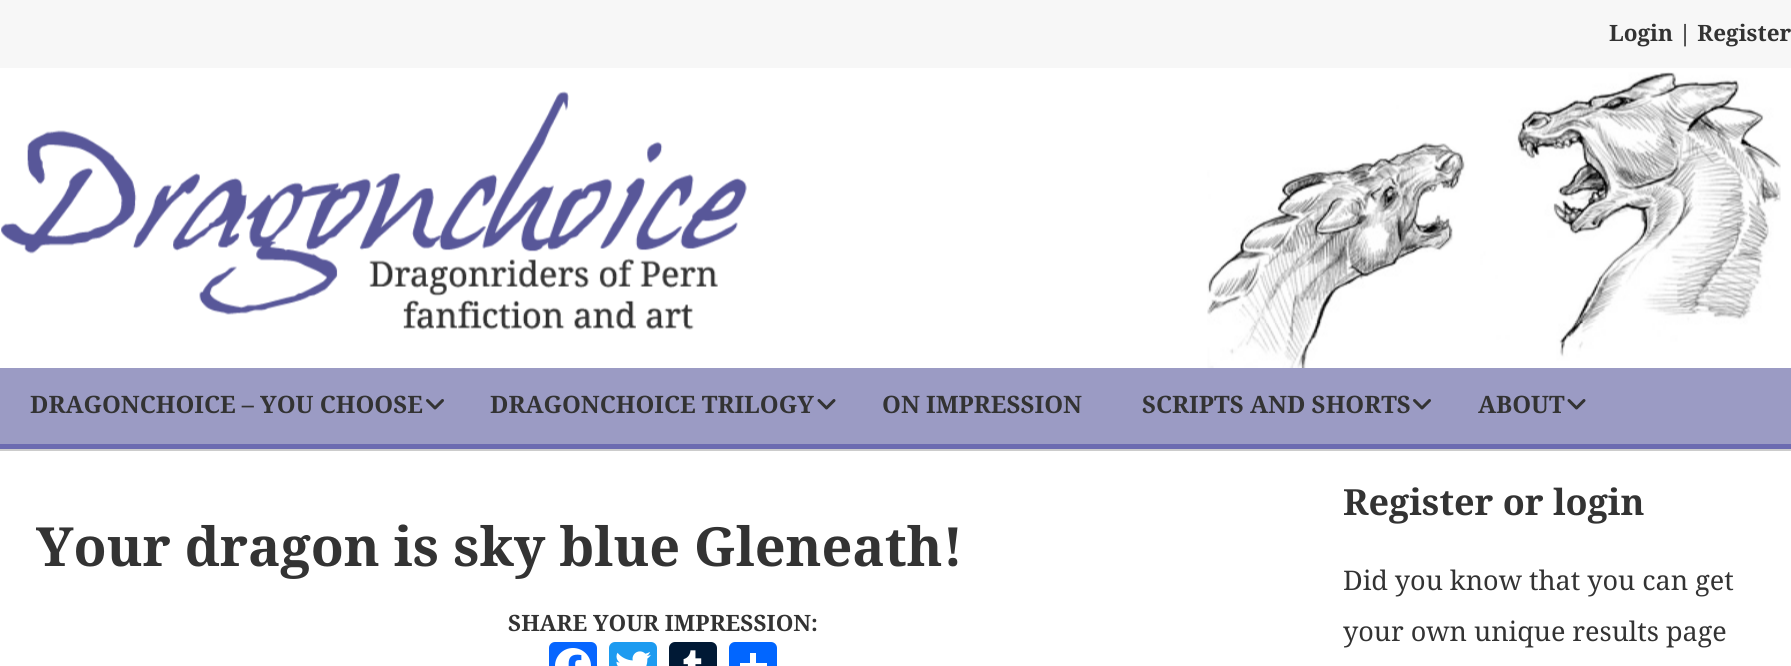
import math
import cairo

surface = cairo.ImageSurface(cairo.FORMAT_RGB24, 1791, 666)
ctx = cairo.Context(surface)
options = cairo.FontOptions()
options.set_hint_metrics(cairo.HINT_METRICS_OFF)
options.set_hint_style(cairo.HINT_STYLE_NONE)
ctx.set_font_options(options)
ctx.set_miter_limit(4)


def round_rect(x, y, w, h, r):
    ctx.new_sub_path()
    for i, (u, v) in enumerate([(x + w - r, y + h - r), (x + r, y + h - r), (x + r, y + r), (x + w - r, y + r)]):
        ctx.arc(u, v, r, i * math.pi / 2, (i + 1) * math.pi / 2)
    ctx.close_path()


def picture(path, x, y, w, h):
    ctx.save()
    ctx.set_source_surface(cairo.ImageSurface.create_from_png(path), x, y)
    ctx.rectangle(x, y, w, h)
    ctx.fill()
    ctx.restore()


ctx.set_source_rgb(1, 1, 1)
ctx.paint()
ctx.set_source_rgb(0.965, 0.965, 0.965)
ctx.rectangle(0, 0, 1791, 68)
ctx.fill()
ctx.set_source_rgb(0.8, 0.8, 0.8)
ctx.rectangle(0, 449, 1791, 2)
ctx.fill()
ctx.select_font_face("Droid Serif", cairo.FONT_SLANT_NORMAL, cairo.FONT_WEIGHT_BOLD)
ctx.set_font_size(22.5)
ctx.set_source_rgb(0.2, 0.2, 0.2)
ctx.move_to(1609, 41)
ctx.show_text("Login | Register")
picture("img1.png", 1, 91, 746, 239)
picture("img2.png", 1207, 72, 574, 296)
ctx.set_source_rgb(0.608, 0.608, 0.769)
ctx.rectangle(0, 368, 1791, 76)
ctx.fill()
ctx.set_source_rgb(0.424, 0.42, 0.694)
ctx.rectangle(0, 444, 1791, 5)
ctx.fill()
ctx.set_font_size(24)
ctx.set_source_rgb(0.2, 0.2, 0.2)
ctx.move_to(30, 413)
ctx.show_text("DRAGONCHOICE – YOU CHOOSE")
picture("img3.png", 426, 399, 18, 11)
ctx.move_to(490, 413)
ctx.show_text("DRAGONCHOICE TRILOGY")
picture("img4.png", 817, 399, 19, 11)
ctx.move_to(882, 413)
ctx.show_text("ON IMPRESSION")
ctx.move_to(1142, 413)
ctx.show_text("SCRIPTS AND SHORTS")
picture("img3.png", 1413, 399, 18, 11)
ctx.move_to(1478, 413)
ctx.show_text("ABOUT")
picture("img4.png", 1567, 399, 19, 11)
ctx.set_font_size(54)
ctx.move_to(36, 566)
ctx.show_text("Your dragon is sky blue Gleneath!")
ctx.set_font_size(22.5)
ctx.move_to(508, 631)
ctx.show_text("SHARE YOUR IMPRESSION:")
ctx.set_source_rgb(0.031, 0.4, 1)
round_rect(549, 642, 48, 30, 6)
ctx.fill()
picture("img5.png", 555, 648, 36, 18)
ctx.set_source_rgb(0.114, 0.608, 0.941)
round_rect(609, 642, 48, 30, 6)
ctx.fill()
picture("img6.png", 616, 651, 35, 15)
ctx.set_source_rgb(0, 0.098, 0.208)
round_rect(669, 642, 48, 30, 6)
ctx.fill()
picture("img7.png", 683, 650, 19, 16)
ctx.set_source_rgb(0.004, 0.4, 1)
round_rect(729, 642, 48, 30, 6)
ctx.fill()
ctx.set_source_rgb(1, 1, 1)
ctx.rectangle(750, 653, 6, 13)
ctx.fill()
ctx.rectangle(740, 663, 27, 3)
ctx.fill()
ctx.set_font_size(36)
ctx.set_source_rgb(0.2, 0.2, 0.2)
ctx.move_to(1343, 515)
ctx.show_text("Register or login")
ctx.select_font_face("Droid Serif")
ctx.set_font_size(27)
ctx.move_to(1343, 590)
ctx.show_text("Did you know that you can get")
ctx.move_to(1343, 641)
ctx.show_text("your own unique results page")
surface.write_to_png("page.png")
